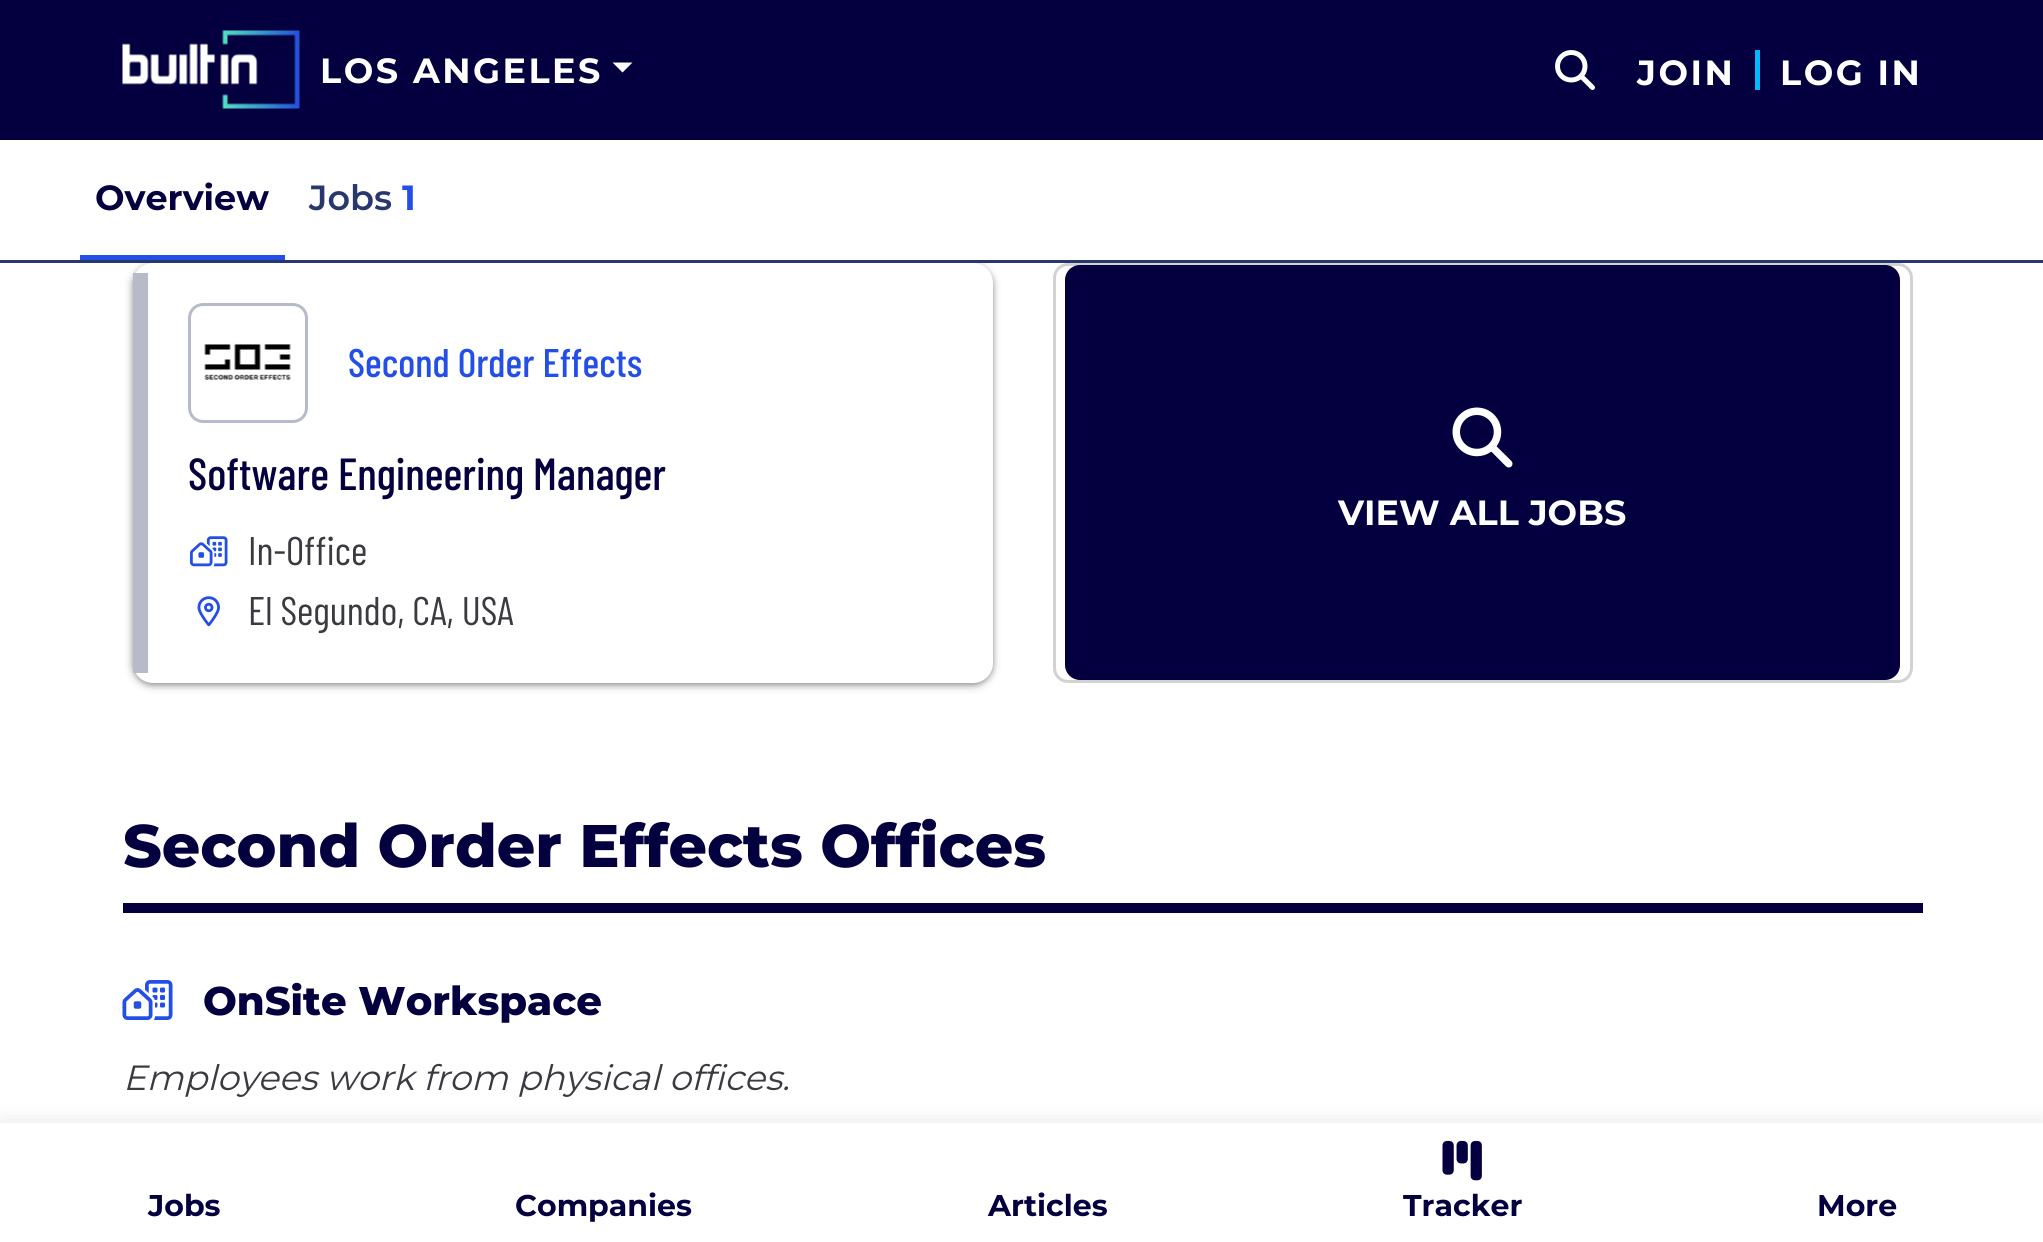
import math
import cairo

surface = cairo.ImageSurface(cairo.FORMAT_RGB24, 2043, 1242)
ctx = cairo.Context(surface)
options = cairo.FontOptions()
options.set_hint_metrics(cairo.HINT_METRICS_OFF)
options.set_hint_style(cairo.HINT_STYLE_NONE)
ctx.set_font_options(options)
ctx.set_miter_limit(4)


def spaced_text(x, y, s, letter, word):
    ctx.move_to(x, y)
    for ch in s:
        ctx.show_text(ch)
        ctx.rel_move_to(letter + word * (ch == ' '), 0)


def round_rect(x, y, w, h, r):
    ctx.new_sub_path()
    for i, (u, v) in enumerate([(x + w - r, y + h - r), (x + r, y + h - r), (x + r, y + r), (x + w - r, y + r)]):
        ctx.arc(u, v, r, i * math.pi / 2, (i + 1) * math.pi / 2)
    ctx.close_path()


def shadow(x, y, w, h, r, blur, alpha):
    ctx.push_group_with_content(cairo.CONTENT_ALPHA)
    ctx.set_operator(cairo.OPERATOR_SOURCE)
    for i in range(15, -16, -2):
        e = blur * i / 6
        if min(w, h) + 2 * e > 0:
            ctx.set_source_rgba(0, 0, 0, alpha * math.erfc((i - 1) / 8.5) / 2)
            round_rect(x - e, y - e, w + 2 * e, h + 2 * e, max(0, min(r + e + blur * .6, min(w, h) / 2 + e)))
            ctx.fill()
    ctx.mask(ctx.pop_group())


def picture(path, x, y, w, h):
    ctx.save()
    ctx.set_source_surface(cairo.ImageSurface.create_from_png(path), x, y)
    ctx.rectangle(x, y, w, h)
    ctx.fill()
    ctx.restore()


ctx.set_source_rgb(1, 1, 1)
ctx.paint()
ctx.set_source_rgb(0.016, 0, 0.247)
ctx.rectangle(0, 0, 2043, 140)
ctx.fill()
picture("img1.png", 122, 30, 178, 79)
ctx.select_font_face("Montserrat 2 Thin")
ctx.set_font_size(35)
ctx.set_source_rgb(1, 1, 1)
spaced_text(320, 83, "LOS ANGELES", 2.5, 0)
ctx.new_path()
ctx.move_to(612.5, 62.5)
ctx.line_to(632.5, 62.5)
ctx.line_to(622.5, 72.5)
ctx.close_path()
ctx.fill()
picture("img2.png", 1555, 50, 40, 40)
spaced_text(1637, 85, "JOIN", 2.5, 0)
ctx.set_source_rgb(0, 0.725, 0.996)
ctx.rectangle(1755, 50, 5, 40)
ctx.fill()
ctx.set_source_rgb(1, 1, 1)
spaced_text(1780, 85, "LOG IN", 2.5, 0)
ctx.set_source_rgb(0, 0, 0)
shadow(130, 263, 865, 425, 23, 4, 0.15)
shadow(133, 265, 860, 420, 20, 2.5, 0.3)
ctx.set_source_rgb(1, 1, 1)
ctx.new_path()
ctx.move_to(15, 140)
ctx.line_to(2030, 140)
ctx.curve_to(2038.5, 140, 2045, 146.5, 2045, 155)
ctx.line_to(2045, 263)
ctx.line_to(0, 263)
ctx.line_to(0, 155)
ctx.curve_to(0, 146.5, 6.5, 140, 15, 140)
ctx.close_path()
ctx.fill()
ctx.set_source_rgb(0.157, 0.22, 0.435)
ctx.rectangle(0, 260, 2043, 3)
ctx.fill()
ctx.set_source_rgb(0.141, 0.31, 0.906)
ctx.rectangle(80, 255, 205, 5)
ctx.fill()
ctx.set_source_rgb(0.016, 0, 0.247)
ctx.move_to(95, 210)
ctx.show_text("Overview")
ctx.select_font_face("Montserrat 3 Thin")
ctx.set_source_rgb(0.157, 0.22, 0.435)
ctx.move_to(309, 210)
ctx.show_text("Jobs")
ctx.select_font_face("Montserrat 2 Thin")
ctx.set_source_rgb(0.141, 0.31, 0.906)
ctx.move_to(402, 210)
ctx.show_text("1")
ctx.set_source_rgb(1, 1, 1)
round_rect(133, 263, 860, 420, 20)
ctx.fill()
ctx.set_source_rgb(0.718, 0.729, 0.788)
ctx.rectangle(133, 273, 15, 400)
ctx.fill()
round_rect(189.5, 304.5, 117, 117, 13.5)
ctx.set_line_width(3)
ctx.stroke()
picture("img3.png", 204, 342, 88, 38)
ctx.select_font_face("Barlow Condensed Medium")
ctx.set_font_size(40)
ctx.set_source_rgb(0.141, 0.31, 0.906)
ctx.move_to(348, 377)
ctx.show_text("Second Order Effects")
ctx.set_font_size(45)
ctx.set_source_rgb(0.016, 0, 0.247)
ctx.move_to(188, 490)
ctx.show_text("Software Engineering Manager")
picture("img4.png", 190, 536, 38, 31)
ctx.select_font_face("Barlow Condensed")
ctx.set_font_size(40)
ctx.set_source_rgb(0.227, 0.231, 0.255)
ctx.move_to(248, 565)
ctx.show_text("In-Office")
picture("img5.png", 197, 596, 23, 31)
ctx.move_to(248, 625)
ctx.show_text("El Segundo, CA, USA")
round_rect(1054.5, 264.5, 857, 417, 13.5)
ctx.set_source_rgb(0.824, 0.824, 0.824)
ctx.stroke()
ctx.set_source_rgb(0.016, 0, 0.247)
round_rect(1065, 265, 835, 415, 15)
ctx.fill()
picture("img6.png", 1452, 407, 61, 61)
ctx.select_font_face("Montserrat 2 Thin")
ctx.set_font_size(35)
ctx.set_source_rgb(1, 1, 1)
ctx.move_to(1338, 525)
ctx.show_text("VIEW ALL JOBS")
ctx.set_source_rgb(0.016, 0, 0.247)
ctx.rectangle(123, 903, 1800, 10)
ctx.fill()
ctx.select_font_face("Montserrat Thin")
ctx.set_font_size(60)
ctx.move_to(123, 867)
ctx.show_text("Second Order Effects Offices")
picture("img7.png", 122, 980, 51, 40)
ctx.set_font_size(40)
ctx.move_to(203, 1015)
ctx.show_text("OnSite Workspace")
ctx.select_font_face("Montserrat Thin", cairo.FONT_SLANT_ITALIC)
ctx.set_font_size(35)
ctx.set_source_rgb(0.227, 0.231, 0.255)
ctx.move_to(123, 1090)
ctx.show_text("Employees work from physical offices.")
ctx.set_source_rgb(0, 0, 0)
shadow(0, 1125, 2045, 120, 0, 12.5, 0.12)
ctx.set_source_rgb(1, 1, 1)
ctx.rectangle(0, 1123, 2043, 119)
ctx.fill()
ctx.select_font_face("Montserrat 2 Thin")
ctx.set_font_size(30)
ctx.set_source_rgb(0.016, 0, 0.247)
ctx.move_to(148, 1216)
ctx.show_text("Jobs")
ctx.move_to(515, 1216)
ctx.show_text("Companies")
ctx.move_to(988, 1216)
ctx.show_text("Articles")
picture("img8.png", 1442, 1140, 40, 41)
ctx.move_to(1403, 1216)
ctx.show_text("Tracker")
ctx.move_to(1817, 1216)
ctx.show_text("More")
surface.write_to_png("page.png")
